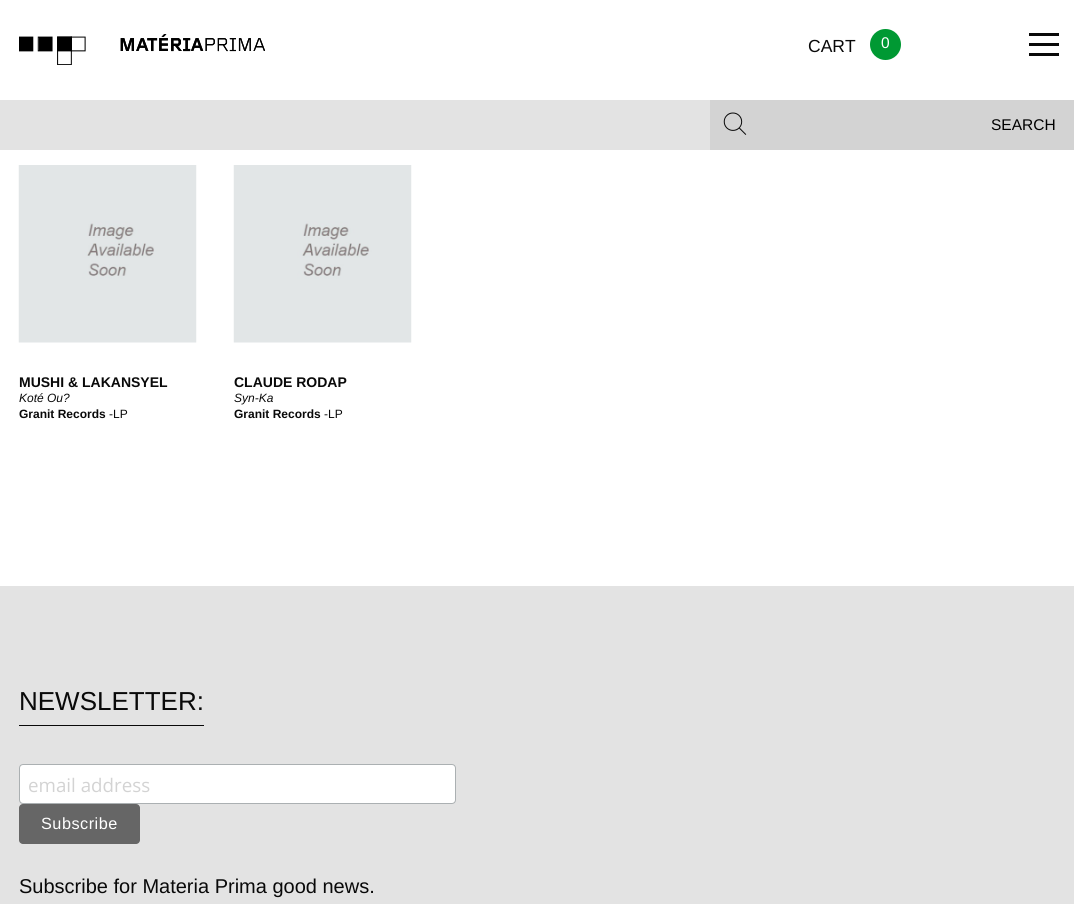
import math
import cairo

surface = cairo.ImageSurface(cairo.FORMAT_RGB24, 1074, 904)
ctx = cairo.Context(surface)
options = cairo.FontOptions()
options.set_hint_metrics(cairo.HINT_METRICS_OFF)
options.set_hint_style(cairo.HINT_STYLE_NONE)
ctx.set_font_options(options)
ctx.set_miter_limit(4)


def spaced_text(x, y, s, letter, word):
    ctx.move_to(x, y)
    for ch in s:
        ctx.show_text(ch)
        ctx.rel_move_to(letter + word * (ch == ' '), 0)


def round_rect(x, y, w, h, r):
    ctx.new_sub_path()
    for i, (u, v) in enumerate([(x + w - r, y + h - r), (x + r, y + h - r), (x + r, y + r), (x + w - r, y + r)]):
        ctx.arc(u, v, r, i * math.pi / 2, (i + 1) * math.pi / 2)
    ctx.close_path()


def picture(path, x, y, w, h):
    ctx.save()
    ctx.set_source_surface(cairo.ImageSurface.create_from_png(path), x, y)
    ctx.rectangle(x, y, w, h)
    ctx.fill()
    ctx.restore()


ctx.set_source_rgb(1, 1, 1)
ctx.paint()
picture("img1.png", 19, 34, 246, 31)
ctx.select_font_face("Liberation Sans")
ctx.set_font_size(17.5)
ctx.set_source_rgb(0.039, 0.039, 0.039)
ctx.move_to(808, 52)
ctx.show_text("CART")
ctx.set_source_rgb(0, 0.6, 0.2)
ctx.new_path()
ctx.arc(885.5, 44.5, 15.5, 0, 2 * math.pi)
ctx.fill()
ctx.set_font_size(15.5)
ctx.set_source_rgb(1, 1, 1)
ctx.move_to(881, 48)
ctx.show_text("0")
ctx.set_source_rgb(0.039, 0.039, 0.039)
ctx.rectangle(1029, 43, 30, 3)
ctx.fill()
ctx.rectangle(1029, 33, 30, 3)
ctx.fill()
ctx.rectangle(1029, 53, 30, 3)
ctx.fill()
ctx.set_source_rgb(0.89, 0.89, 0.89)
ctx.rectangle(0, 100, 710, 50)
ctx.fill()
ctx.set_source_rgb(0.827, 0.827, 0.827)
ctx.rectangle(710, 100, 364, 50)
ctx.fill()
picture("img2.png", 723, 112, 24, 23)
ctx.set_source_rgb(0, 0, 0)
ctx.move_to(991, 130)
ctx.show_text("SEARCH")
picture("img3.png", 18, 165, 179, 178)
ctx.select_font_face("Liberation Sans", cairo.FONT_SLANT_NORMAL, cairo.FONT_WEIGHT_BOLD)
ctx.set_font_size(14)
ctx.set_source_rgb(0.039, 0.039, 0.039)
ctx.move_to(19, 387)
ctx.show_text("MUSHI & LAKANSYEL")
ctx.select_font_face("Liberation Sans", cairo.FONT_SLANT_ITALIC)
ctx.set_font_size(12)
ctx.move_to(19, 402)
ctx.show_text("Koté Ou?")
ctx.select_font_face("Liberation Sans", cairo.FONT_SLANT_NORMAL, cairo.FONT_WEIGHT_BOLD)
ctx.move_to(19, 418)
ctx.show_text("Granit Records")
ctx.select_font_face("Liberation Sans")
ctx.move_to(109, 418)
ctx.show_text("-LP")
picture("img3.png", 233, 165, 179, 178)
ctx.select_font_face("Liberation Sans", cairo.FONT_SLANT_NORMAL, cairo.FONT_WEIGHT_BOLD)
ctx.set_font_size(14)
ctx.move_to(234, 387)
ctx.show_text("CLAUDE RODAP")
ctx.select_font_face("Liberation Sans", cairo.FONT_SLANT_ITALIC)
ctx.set_font_size(12)
ctx.move_to(234, 402)
ctx.show_text("Syn-Ka")
ctx.select_font_face("Liberation Sans", cairo.FONT_SLANT_NORMAL, cairo.FONT_WEIGHT_BOLD)
ctx.move_to(234, 418)
ctx.show_text("Granit Records")
ctx.select_font_face("Liberation Sans")
ctx.move_to(324, 418)
ctx.show_text("-LP")
ctx.set_source_rgb(0.89, 0.89, 0.89)
ctx.rectangle(0, 586, 1074, 318)
ctx.fill()
ctx.set_source_rgb(0.039, 0.039, 0.039)
ctx.rectangle(19, 725, 185, 1)
ctx.fill()
ctx.set_font_size(26)
ctx.move_to(19, 710)
ctx.show_text("NEWSLETTER:")
ctx.set_source_rgb(1, 1, 1)
round_rect(19.5, 764.5, 436, 39, 3.5)
ctx.fill_preserve()
ctx.set_source_rgb(0.671, 0.69, 0.698)
ctx.set_line_width(1)
ctx.stroke()
ctx.select_font_face("Open Sans")
ctx.set_font_size(18.75)
ctx.set_source_rgb(0.827, 0.827, 0.827)
ctx.move_to(28, 792)
ctx.show_text("email address")
ctx.set_source_rgb(0.4, 0.4, 0.4)
round_rect(19, 804, 121, 40, 4)
ctx.fill()
ctx.select_font_face("Liberation Sans")
ctx.set_font_size(16.25)
ctx.set_source_rgb(1, 1, 1)
spaced_text(41, 829, "Subscribe", 0.5, 0)
ctx.set_font_size(20)
ctx.set_source_rgb(0.039, 0.039, 0.039)
ctx.move_to(19, 893)
ctx.show_text("Subscribe for Materia Prima good news.")
surface.write_to_png("page.png")
